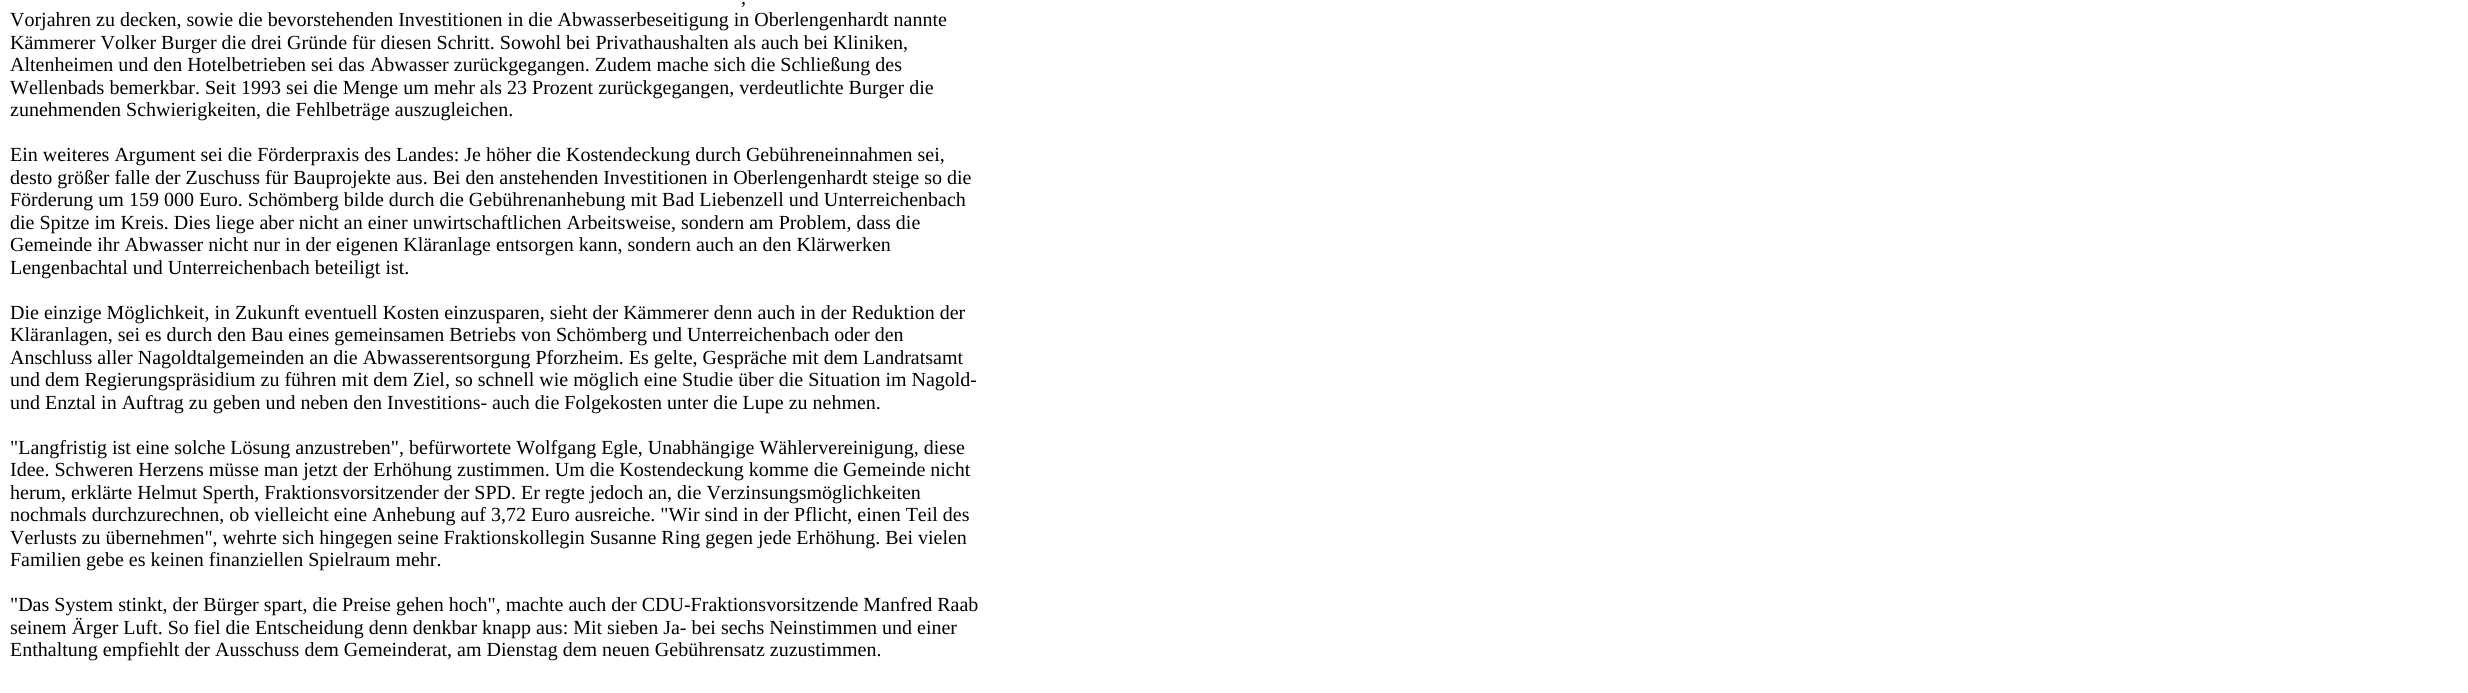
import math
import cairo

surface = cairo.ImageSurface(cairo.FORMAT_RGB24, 2468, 693)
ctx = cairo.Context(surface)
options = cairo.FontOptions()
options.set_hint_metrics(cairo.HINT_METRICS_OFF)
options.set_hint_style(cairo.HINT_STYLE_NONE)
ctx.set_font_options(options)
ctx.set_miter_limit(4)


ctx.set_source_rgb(1, 1, 1)
ctx.paint()
ctx.select_font_face("Liberation Serif")
ctx.set_font_size(20)
ctx.set_source_rgb(0, 0, 0)
ctx.move_to(741, 4)
ctx.show_text(",")
ctx.move_to(10, 26)
ctx.show_text("Vorjahren zu decken, sowie die bevorstehenden Investitionen in die Abwasserbeseitigung in Oberlengenhardt nannte")
ctx.move_to(10, 49)
ctx.show_text("Kämmerer Volker Burger die drei Gründe für diesen Schritt. Sowohl bei Privathaushalten als auch bei Kliniken,")
ctx.move_to(10, 71)
ctx.show_text("Altenheimen und den Hotelbetrieben sei das Abwasser zurückgegangen. Zudem mache sich die Schließung des")
ctx.move_to(10, 94)
ctx.show_text("Wellenbads bemerkbar. Seit 1993 sei die Menge um mehr als 23 Prozent zurückgegangen, verdeutlichte Burger die")
ctx.move_to(10, 116)
ctx.show_text("zunehmenden Schwierigkeiten, die Fehlbeträge auszugleichen.")
ctx.move_to(10, 161)
ctx.show_text("Ein weiteres Argument sei die Förderpraxis des Landes: Je höher die Kostendeckung durch Gebühreneinnahmen sei,")
ctx.move_to(10, 184)
ctx.show_text("desto größer falle der Zuschuss für Bauprojekte aus. Bei den anstehenden Investitionen in Oberlengenhardt steige so die")
ctx.move_to(10, 206)
ctx.show_text("Förderung um 159 000 Euro. Schömberg bilde durch die Gebührenanhebung mit Bad Liebenzell und Unterreichenbach")
ctx.move_to(10, 229)
ctx.show_text("die Spitze im Kreis. Dies liege aber nicht an einer unwirtschaftlichen Arbeitsweise, sondern am Problem, dass die")
ctx.move_to(10, 251)
ctx.show_text("Gemeinde ihr Abwasser nicht nur in der eigenen Kläranlage entsorgen kann, sondern auch an den Klärwerken")
ctx.move_to(10, 274)
ctx.show_text("Lengenbachtal und Unterreichenbach beteiligt ist.")
ctx.move_to(10, 319)
ctx.show_text("Die einzige Möglichkeit, in Zukunft eventuell Kosten einzusparen, sieht der Kämmerer denn auch in der Reduktion der")
ctx.move_to(10, 341)
ctx.show_text("Kläranlagen, sei es durch den Bau eines gemeinsamen Betriebs von Schömberg und Unterreichenbach oder den")
ctx.move_to(10, 364)
ctx.show_text("Anschluss aller Nagoldtalgemeinden an die Abwasserentsorgung Pforzheim. Es gelte, Gespräche mit dem Landratsamt")
ctx.move_to(10, 386)
ctx.show_text("und dem Regierungspräsidium zu führen mit dem Ziel, so schnell wie möglich eine Studie über die Situation im Nagold-")
ctx.move_to(10, 409)
ctx.show_text("und Enztal in Auftrag zu geben und neben den Investitions- auch die Folgekosten unter die Lupe zu nehmen.")
ctx.move_to(10, 454)
ctx.show_text("\"Langfristig ist eine solche Lösung anzustreben\", befürwortete Wolfgang Egle, Unabhängige Wählervereinigung, diese")
ctx.move_to(10, 476)
ctx.show_text("Idee. Schweren Herzens müsse man jetzt der Erhöhung zustimmen. Um die Kostendeckung komme die Gemeinde nicht")
ctx.move_to(10, 499)
ctx.show_text("herum, erklärte Helmut Sperth, Fraktionsvorsitzender der SPD. Er regte jedoch an, die Verzinsungsmöglichkeiten")
ctx.move_to(10, 521)
ctx.show_text("nochmals durchzurechnen, ob vielleicht eine Anhebung auf 3,72 Euro ausreiche. \"Wir sind in der Pflicht, einen Teil des")
ctx.move_to(10, 544)
ctx.show_text("Verlusts zu übernehmen\", wehrte sich hingegen seine Fraktionskollegin Susanne Ring gegen jede Erhöhung. Bei vielen")
ctx.move_to(10, 566)
ctx.show_text("Familien gebe es keinen finanziellen Spielraum mehr.")
ctx.move_to(10, 611)
ctx.show_text("\"Das System stinkt, der Bürger spart, die Preise gehen hoch\", machte auch der CDU-Fraktionsvorsitzende Manfred Raab")
ctx.move_to(10, 634)
ctx.show_text("seinem Ärger Luft. So fiel die Entscheidung denn denkbar knapp aus: Mit sieben Ja- bei sechs Neinstimmen und einer")
ctx.move_to(10, 656)
ctx.show_text("Enthaltung empfiehlt der Ausschuss dem Gemeinderat, am Dienstag dem neuen Gebührensatz zuzustimmen.")
surface.write_to_png("page.png")
